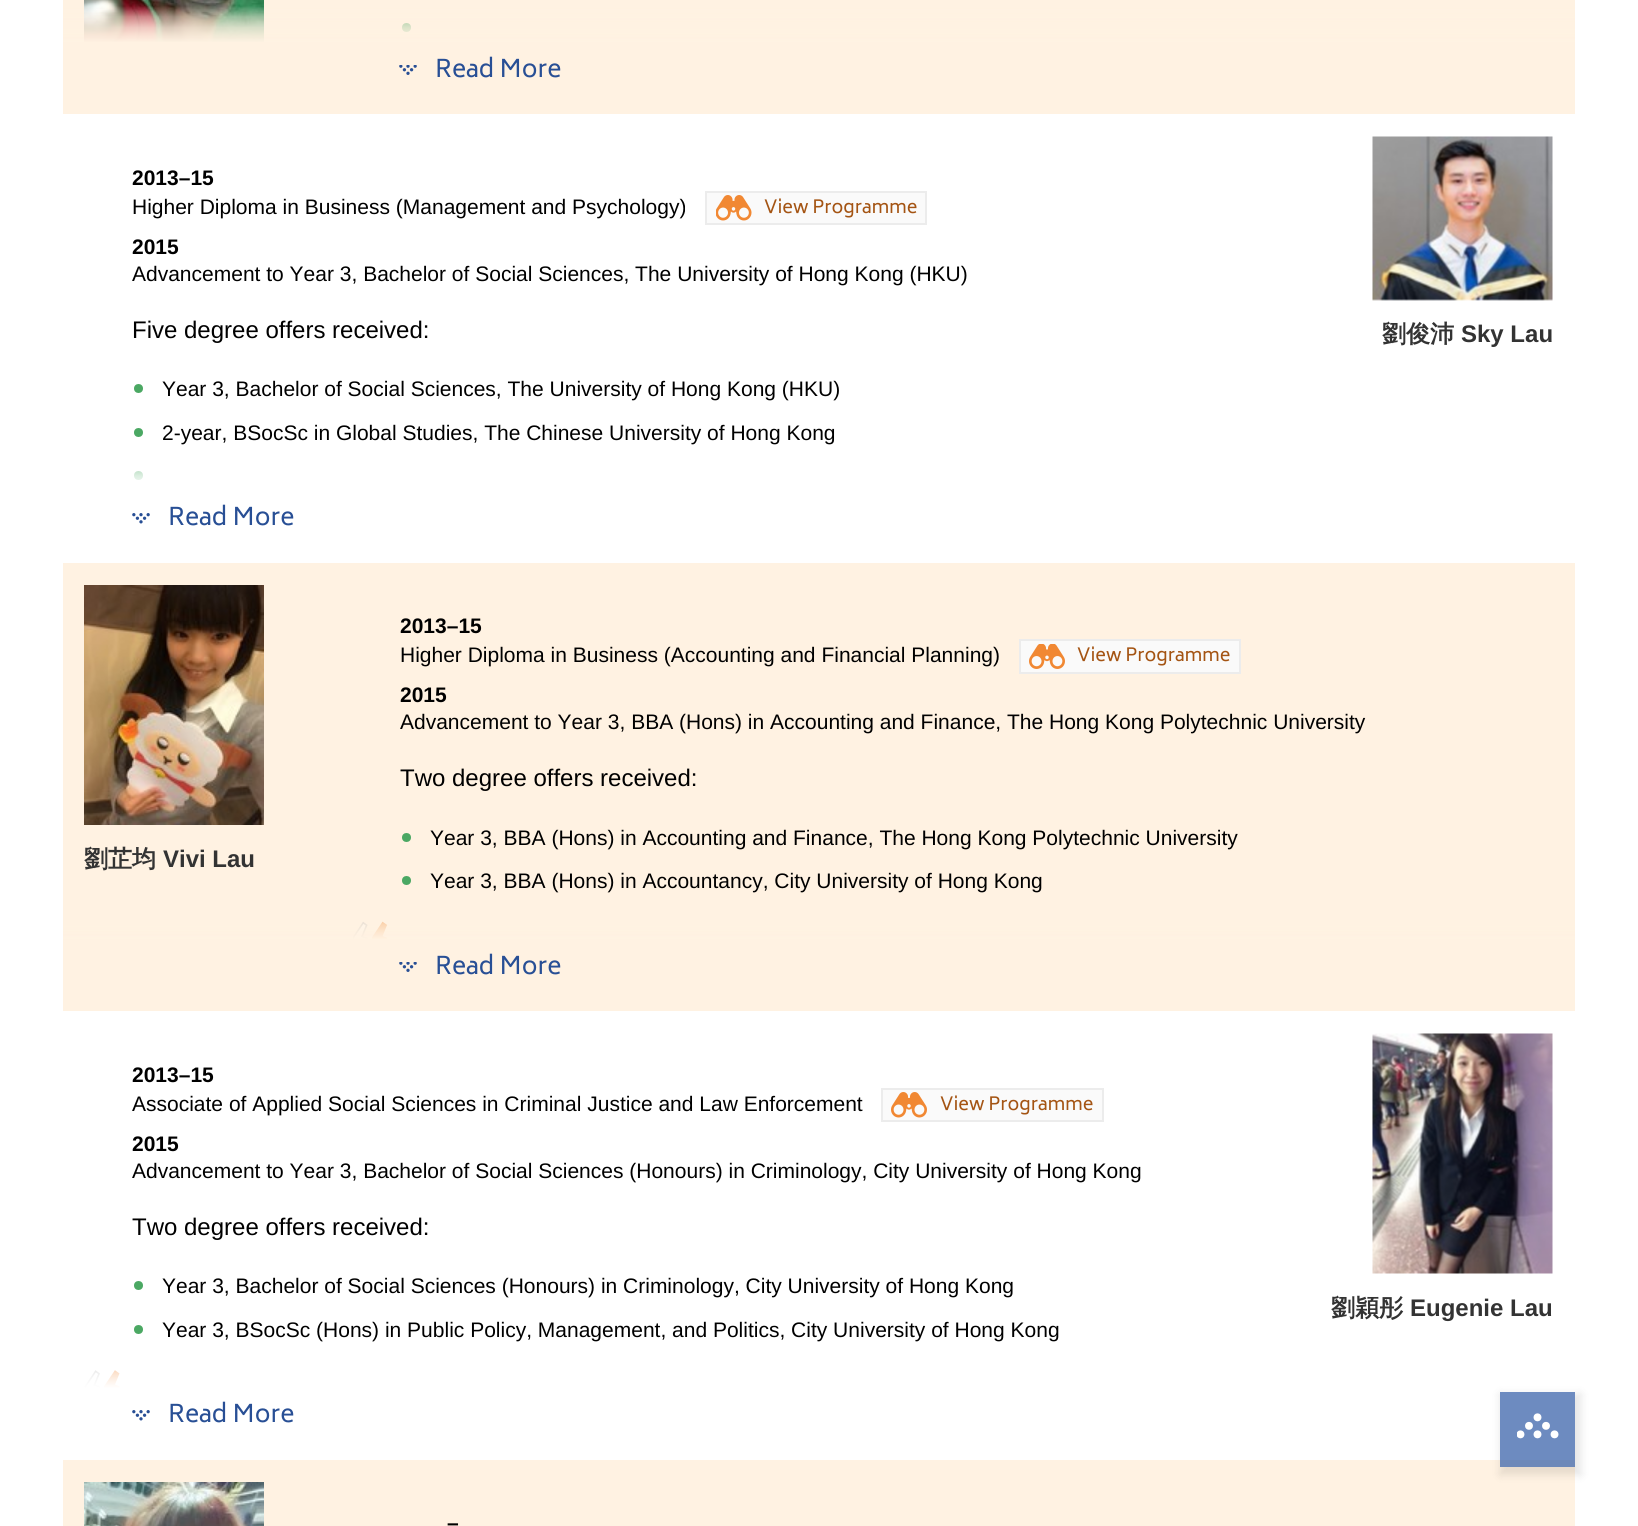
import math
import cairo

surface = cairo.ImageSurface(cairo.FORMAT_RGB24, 1638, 1526)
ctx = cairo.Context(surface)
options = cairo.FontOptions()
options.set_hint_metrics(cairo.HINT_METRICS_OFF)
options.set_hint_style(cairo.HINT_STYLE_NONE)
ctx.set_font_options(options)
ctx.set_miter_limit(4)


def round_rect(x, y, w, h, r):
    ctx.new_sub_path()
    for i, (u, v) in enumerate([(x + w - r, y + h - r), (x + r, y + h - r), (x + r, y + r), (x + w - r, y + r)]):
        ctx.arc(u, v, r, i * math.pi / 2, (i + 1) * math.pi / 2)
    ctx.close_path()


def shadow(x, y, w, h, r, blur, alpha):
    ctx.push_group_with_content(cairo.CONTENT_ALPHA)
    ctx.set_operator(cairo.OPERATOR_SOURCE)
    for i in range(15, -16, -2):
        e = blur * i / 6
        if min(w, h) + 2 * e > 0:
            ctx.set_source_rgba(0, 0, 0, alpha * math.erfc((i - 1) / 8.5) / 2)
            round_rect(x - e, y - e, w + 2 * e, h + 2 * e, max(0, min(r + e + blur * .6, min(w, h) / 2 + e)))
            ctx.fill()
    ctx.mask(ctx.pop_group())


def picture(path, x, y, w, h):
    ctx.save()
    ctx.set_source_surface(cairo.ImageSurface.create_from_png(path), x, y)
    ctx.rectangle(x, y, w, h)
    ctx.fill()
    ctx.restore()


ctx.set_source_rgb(1, 1, 1)
ctx.paint()
ctx.set_source_rgb(1, 0.949, 0.886)
ctx.rectangle(63, 0, 1512, 42)
ctx.fill()
picture("img1.png", 84, 0, 180, 42)
ctx.set_source_rgb(0.294, 0.659, 0.388)
ctx.arc(406.5, 27.5, 4.5, 0, 2 * math.pi)
ctx.fill()
gradient = cairo.LinearGradient(819, 6, 819, 114)
gradient.add_color_stop_rgba(0, 1, 0.949, 0.886, 0)
gradient.add_color_stop_rgba(0.1, 1, 0.949, 0.886, 0.5)
gradient.add_color_stop_rgba(0.2, 1, 0.949, 0.886, 0.8)
gradient.add_color_stop_rgba(0.26, 1, 0.949, 0.886, 0.9)
gradient.add_color_stop_rgba(0.34, 1, 0.949, 0.886, 1)
gradient.add_color_stop_rgba(1, 1, 0.949, 0.886, 1)
ctx.set_source(gradient)
ctx.rectangle(63, 6, 1512, 108)
ctx.fill()
picture("img2.png", 399, 65, 18, 10)
ctx.select_font_face("Biryani")
ctx.set_font_size(24)
ctx.set_source_rgb(0.157, 0.31, 0.584)
ctx.move_to(435, 77)
ctx.show_text("Read More")
ctx.select_font_face("Liberation Sans", cairo.FONT_SLANT_NORMAL, cairo.FONT_WEIGHT_BOLD)
ctx.set_font_size(21)
ctx.set_source_rgb(0, 0, 0)
ctx.move_to(132, 185)
ctx.show_text("2013–15")
ctx.select_font_face("Liberation Sans")
ctx.move_to(132, 214)
ctx.show_text("Higher Diploma in Business (Management and Psychology)")
ctx.set_source_rgb(0.98, 0.98, 0.98)
ctx.rectangle(706, 192, 220, 32)
ctx.fill_preserve()
ctx.set_source_rgb(0.922, 0.922, 0.922)
ctx.stroke()
picture("img3.png", 716, 195, 36, 26)
ctx.select_font_face("Biryani")
ctx.set_font_size(18)
ctx.set_source_rgb(0.643, 0.329, 0.075)
ctx.move_to(764, 213)
ctx.show_text("View Programme")
ctx.select_font_face("Liberation Sans", cairo.FONT_SLANT_NORMAL, cairo.FONT_WEIGHT_BOLD)
ctx.set_font_size(21)
ctx.set_source_rgb(0, 0, 0)
ctx.move_to(132, 254)
ctx.show_text("2015")
ctx.select_font_face("Liberation Sans")
ctx.move_to(132, 281)
ctx.show_text("Advancement to Year 3, Bachelor of Social Sciences, The University of Hong Kong (HKU)")
ctx.set_font_size(24)
ctx.move_to(132, 338)
ctx.show_text("Five degree offers received:")
ctx.set_source_rgb(0.294, 0.659, 0.388)
ctx.new_path()
ctx.arc(138.5, 388.5, 4.5, 0, 2 * math.pi)
ctx.fill()
ctx.set_font_size(21)
ctx.set_source_rgb(0, 0, 0)
ctx.move_to(162, 396)
ctx.show_text("Year 3, Bachelor of Social Sciences, The University of Hong Kong (HKU)")
ctx.set_source_rgb(0.294, 0.659, 0.388)
ctx.new_path()
ctx.arc(138.5, 432.5, 4.5, 0, 2 * math.pi)
ctx.fill()
ctx.set_source_rgb(0, 0, 0)
ctx.move_to(162, 440)
ctx.show_text("2-year, BSocSc in Global Studies, The Chinese University of Hong Kong")
ctx.set_source_rgb(0.294, 0.659, 0.388)
ctx.new_path()
ctx.arc(138.5, 475.5, 4.5, 0, 2 * math.pi)
ctx.fill()
picture("img4.png", 1372, 136, 181, 165)
ctx.select_font_face("WenQuanYi Zen Hei", cairo.FONT_SLANT_NORMAL, cairo.FONT_WEIGHT_BOLD)
ctx.set_font_size(24)
ctx.set_source_rgb(0.2, 0.2, 0.2)
ctx.move_to(1382, 342)
ctx.show_text("劉俊沛")
ctx.select_font_face("Liberation Sans", cairo.FONT_SLANT_NORMAL, cairo.FONT_WEIGHT_BOLD)
ctx.move_to(1461, 342)
ctx.show_text("Sky Lau")
gradient = cairo.LinearGradient(819, 454, 819, 563)
gradient.add_color_stop_rgba(0, 1, 1, 1, 0.4)
gradient.add_color_stop_rgba(0.1, 1, 1, 1, 0.5)
gradient.add_color_stop_rgba(0.2, 1, 1, 1, 0.8)
gradient.add_color_stop_rgba(0.26, 1, 1, 1, 0.9)
gradient.add_color_stop_rgba(0.34, 1, 1, 1, 1)
gradient.add_color_stop_rgba(1, 1, 1, 1, 1)
ctx.set_source(gradient)
ctx.rectangle(134, 471, 9, 9)
ctx.fill()
picture("img5.png", 132, 513, 18, 11)
ctx.select_font_face("Biryani")
ctx.set_source_rgb(0.157, 0.31, 0.584)
ctx.move_to(168, 525)
ctx.show_text("Read More")
ctx.set_source_rgb(1, 0.949, 0.886)
ctx.rectangle(63, 563, 1512, 376)
ctx.fill()
picture("img6.png", 84, 585, 180, 240)
ctx.select_font_face("WenQuanYi Zen Hei", cairo.FONT_SLANT_NORMAL, cairo.FONT_WEIGHT_BOLD)
ctx.set_source_rgb(0.2, 0.2, 0.2)
ctx.move_to(84, 867)
ctx.show_text("劉芷均")
ctx.select_font_face("Liberation Sans", cairo.FONT_SLANT_NORMAL, cairo.FONT_WEIGHT_BOLD)
ctx.move_to(163, 867)
ctx.show_text("Vivi Lau")
ctx.set_font_size(21)
ctx.set_source_rgb(0, 0, 0)
ctx.move_to(400, 633)
ctx.show_text("2013–15")
ctx.select_font_face("Liberation Sans")
ctx.move_to(400, 662)
ctx.show_text("Higher Diploma in Business (Accounting and Financial Planning)")
ctx.set_source_rgb(0.98, 0.98, 0.98)
ctx.rectangle(1020, 640, 220, 33)
ctx.fill_preserve()
ctx.set_source_rgb(0.922, 0.922, 0.922)
ctx.stroke()
picture("img7.png", 1029, 644, 36, 25)
ctx.select_font_face("Biryani")
ctx.set_font_size(18)
ctx.set_source_rgb(0.643, 0.329, 0.075)
ctx.move_to(1077, 661)
ctx.show_text("View Programme")
ctx.select_font_face("Liberation Sans", cairo.FONT_SLANT_NORMAL, cairo.FONT_WEIGHT_BOLD)
ctx.set_font_size(21)
ctx.set_source_rgb(0, 0, 0)
ctx.move_to(400, 702)
ctx.show_text("2015")
ctx.select_font_face("Liberation Sans")
ctx.move_to(400, 729)
ctx.show_text("Advancement to Year 3, BBA (Hons) in Accounting and Finance, The Hong Kong Polytechnic University")
ctx.set_font_size(24)
ctx.move_to(400, 786)
ctx.show_text("Two degree offers received:")
ctx.set_source_rgb(0.294, 0.659, 0.388)
ctx.new_path()
ctx.arc(406.5, 837.5, 4.5, 0, 2 * math.pi)
ctx.fill()
ctx.set_font_size(21)
ctx.set_source_rgb(0, 0, 0)
ctx.move_to(430, 845)
ctx.show_text("Year 3, BBA (Hons) in Accounting and Finance, The Hong Kong Polytechnic University")
ctx.set_source_rgb(0.294, 0.659, 0.388)
ctx.new_path()
ctx.arc(406.5, 880.5, 4.5, 0, 2 * math.pi)
ctx.fill()
ctx.set_source_rgb(0, 0, 0)
ctx.move_to(430, 888)
ctx.show_text("Year 3, BBA (Hons) in Accountancy, City University of Hong Kong")
picture("img8.png", 353, 921, 15, 18)
picture("img9.png", 372, 921, 16, 18)
gradient = cairo.LinearGradient(819, 903, 819, 1011)
gradient.add_color_stop_rgba(0, 1, 0.949, 0.886, 0)
gradient.add_color_stop_rgba(0.1, 1, 0.949, 0.886, 0.5)
gradient.add_color_stop_rgba(0.2, 1, 0.949, 0.886, 0.8)
gradient.add_color_stop_rgba(0.26, 1, 0.949, 0.886, 0.9)
gradient.add_color_stop_rgba(0.34, 1, 0.949, 0.886, 1)
gradient.add_color_stop_rgba(1, 1, 0.949, 0.886, 1)
ctx.set_source(gradient)
ctx.rectangle(63, 921, 1512, 90)
ctx.fill()
picture("img2.png", 399, 962, 18, 10)
ctx.select_font_face("Biryani")
ctx.set_font_size(24)
ctx.set_source_rgb(0.157, 0.31, 0.584)
ctx.move_to(435, 974)
ctx.show_text("Read More")
ctx.select_font_face("Liberation Sans", cairo.FONT_SLANT_NORMAL, cairo.FONT_WEIGHT_BOLD)
ctx.set_font_size(21)
ctx.set_source_rgb(0, 0, 0)
ctx.move_to(132, 1082)
ctx.show_text("2013–15")
ctx.select_font_face("Liberation Sans")
ctx.move_to(132, 1111)
ctx.show_text("Associate of Applied Social Sciences in Criminal Justice and Law Enforcement")
ctx.set_source_rgb(0.98, 0.98, 0.98)
ctx.rectangle(882, 1089, 221, 32)
ctx.fill_preserve()
ctx.set_source_rgb(0.922, 0.922, 0.922)
ctx.stroke()
picture("img10.png", 891, 1092, 36, 26)
ctx.select_font_face("Biryani")
ctx.set_font_size(18)
ctx.set_source_rgb(0.643, 0.329, 0.075)
ctx.move_to(940, 1110)
ctx.show_text("View Programme")
ctx.select_font_face("Liberation Sans", cairo.FONT_SLANT_NORMAL, cairo.FONT_WEIGHT_BOLD)
ctx.set_font_size(21)
ctx.set_source_rgb(0, 0, 0)
ctx.move_to(132, 1151)
ctx.show_text("2015")
ctx.select_font_face("Liberation Sans")
ctx.move_to(132, 1178)
ctx.show_text("Advancement to Year 3, Bachelor of Social Sciences (Honours) in Criminology, City University of Hong Kong")
ctx.set_font_size(24)
ctx.move_to(132, 1235)
ctx.show_text("Two degree offers received:")
ctx.set_source_rgb(0.294, 0.659, 0.388)
ctx.new_path()
ctx.arc(138.5, 1285.5, 4.5, 0, 2 * math.pi)
ctx.fill()
ctx.set_font_size(21)
ctx.set_source_rgb(0, 0, 0)
ctx.move_to(162, 1293)
ctx.show_text("Year 3, Bachelor of Social Sciences (Honours) in Criminology, City University of Hong Kong")
ctx.set_source_rgb(0.294, 0.659, 0.388)
ctx.new_path()
ctx.arc(138.5, 1329.5, 4.5, 0, 2 * math.pi)
ctx.fill()
ctx.set_source_rgb(0, 0, 0)
ctx.move_to(162, 1337)
ctx.show_text("Year 3, BSocSc (Hons) in Public Policy, Management, and Politics, City University of Hong Kong")
picture("img11.png", 84, 1370, 16, 18)
picture("img12.png", 104, 1370, 16, 18)
picture("img13.png", 1372, 1033, 181, 241)
ctx.select_font_face("WenQuanYi Zen Hei", cairo.FONT_SLANT_NORMAL, cairo.FONT_WEIGHT_BOLD)
ctx.set_font_size(24)
ctx.set_source_rgb(0.2, 0.2, 0.2)
ctx.move_to(1331, 1316)
ctx.show_text("劉穎彤")
ctx.select_font_face("Liberation Sans", cairo.FONT_SLANT_NORMAL, cairo.FONT_WEIGHT_BOLD)
ctx.move_to(1410, 1316)
ctx.show_text("Eugenie Lau")
gradient = cairo.LinearGradient(819, 1351, 819, 1460)
gradient.add_color_stop_rgba(0, 1, 1, 1, 0.4)
gradient.add_color_stop_rgba(0.1, 1, 1, 1, 0.5)
gradient.add_color_stop_rgba(0.2, 1, 1, 1, 0.8)
gradient.add_color_stop_rgba(0.26, 1, 1, 1, 0.9)
gradient.add_color_stop_rgba(0.34, 1, 1, 1, 1)
gradient.add_color_stop_rgba(1, 1, 1, 1, 1)
ctx.set_source(gradient)
ctx.rectangle(84, 1370, 36, 18)
ctx.fill()
picture("img5.png", 132, 1410, 18, 11)
ctx.select_font_face("Biryani")
ctx.set_source_rgb(0.157, 0.31, 0.584)
ctx.move_to(168, 1422)
ctx.show_text("Read More")
ctx.set_source_rgb(1, 0.949, 0.886)
ctx.rectangle(63, 1460, 1512, 66)
ctx.fill()
picture("img14.png", 84, 1482, 180, 44)
ctx.select_font_face("Liberation Sans", cairo.FONT_SLANT_NORMAL, cairo.FONT_WEIGHT_BOLD)
ctx.set_font_size(21)
ctx.set_source_rgb(0, 0, 0)
ctx.move_to(447, 1530)
ctx.show_text("–")
ctx.save()
ctx.set_fill_rule(cairo.FILL_RULE_EVEN_ODD)
ctx.new_path()
ctx.move_to(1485, 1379)
ctx.line_to(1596, 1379)
ctx.line_to(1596, 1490)
ctx.line_to(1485, 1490)
ctx.close_path()
ctx.move_to(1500, 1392)
ctx.line_to(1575, 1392)
ctx.line_to(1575, 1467)
ctx.line_to(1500, 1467)
ctx.close_path()
ctx.clip()
ctx.set_source_rgb(0, 0, 0)
shadow(1500, 1394, 81, 81, 0, 4.5, 0.1)
ctx.restore()
ctx.set_source_rgba(0.239, 0.392, 0.667, 0.75)
ctx.rectangle(1500, 1392, 75, 75)
ctx.fill()
picture("img15.png", 1517, 1413, 42, 26)
surface.write_to_png("page.png")
